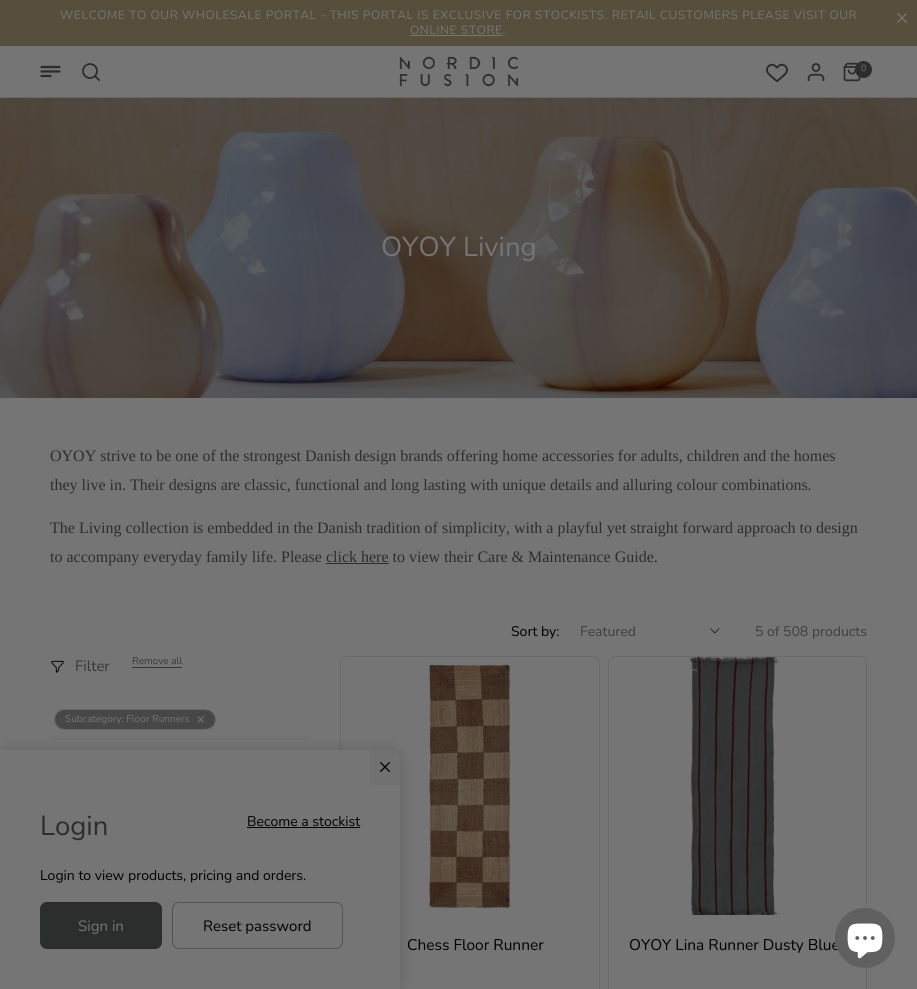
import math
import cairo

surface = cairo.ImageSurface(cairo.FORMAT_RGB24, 917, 989)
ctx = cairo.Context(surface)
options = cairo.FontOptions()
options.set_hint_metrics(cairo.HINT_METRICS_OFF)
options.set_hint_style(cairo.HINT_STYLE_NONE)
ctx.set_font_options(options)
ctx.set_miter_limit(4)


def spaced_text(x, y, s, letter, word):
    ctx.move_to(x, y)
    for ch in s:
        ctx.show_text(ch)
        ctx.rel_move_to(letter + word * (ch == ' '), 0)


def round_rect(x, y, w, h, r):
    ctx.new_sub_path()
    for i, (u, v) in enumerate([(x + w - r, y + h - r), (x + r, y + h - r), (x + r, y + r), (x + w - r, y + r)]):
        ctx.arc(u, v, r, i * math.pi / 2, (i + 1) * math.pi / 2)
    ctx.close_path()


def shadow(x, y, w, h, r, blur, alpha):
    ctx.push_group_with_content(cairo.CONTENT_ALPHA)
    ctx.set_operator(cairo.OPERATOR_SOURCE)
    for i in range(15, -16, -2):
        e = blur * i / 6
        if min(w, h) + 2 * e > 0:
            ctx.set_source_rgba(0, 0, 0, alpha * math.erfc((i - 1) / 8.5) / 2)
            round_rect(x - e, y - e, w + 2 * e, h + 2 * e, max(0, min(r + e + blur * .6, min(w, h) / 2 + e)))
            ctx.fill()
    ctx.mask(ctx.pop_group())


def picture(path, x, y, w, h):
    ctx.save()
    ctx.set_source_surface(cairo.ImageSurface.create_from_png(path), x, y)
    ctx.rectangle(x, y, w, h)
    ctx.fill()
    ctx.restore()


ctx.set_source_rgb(0.459, 0.459, 0.459)
ctx.paint()
ctx.set_source_rgb(0.341, 0.31, 0.235)
ctx.rectangle(0, 0, 917, 46)
ctx.fill()
ctx.select_font_face("Nunito")
ctx.set_font_size(12)
ctx.set_source_rgb(0.459, 0.459, 0.459)
spaced_text(60, 19, "WELCOME TO OUR WHOLESALE PORTAL - THIS PORTAL IS EXCLUSIVE FOR STOCKISTS. RETAIL CUSTOMERS PLEASE VISIT OUR", 0.6, 0)
spaced_text(410, 34, "ONLINE STORE.", 0.6, 0)
ctx.rectangle(410, 35, 93, 1)
ctx.fill()
picture("img1.png", 897, 13, 10, 10)
picture("img2.png", 40, 65, 21, 13)
ctx.arc(90, 71, 7, 0, 2 * math.pi)
ctx.set_source_rgb(0.173, 0.173, 0.173)
ctx.set_line_width(1.8)
ctx.stroke()
ctx.new_path()
ctx.move_to(99, 80)
ctx.line_to(95, 76)
ctx.set_line_cap(cairo.LINE_CAP_ROUND)
ctx.set_line_join(cairo.LINE_JOIN_ROUND)
ctx.stroke()
picture("img3.png", 399, 56, 120, 31)
picture("img4.png", 766, 63, 22, 20)
picture("img5.png", 807, 63, 18, 19)
picture("img6.png", 843, 62, 18, 20)
ctx.set_source_rgb(0.173, 0.176, 0.176)
ctx.arc(863.5, 69.5, 8.5, 0, 2 * math.pi)
ctx.fill()
ctx.set_font_size(9)
ctx.set_source_rgb(0.459, 0.459, 0.459)
ctx.move_to(861, 71)
ctx.show_text("0")
ctx.set_source_rgb(0.396, 0.396, 0.396)
ctx.rectangle(0, 97, 917, 1)
ctx.fill()
picture("img7.png", 0, 98, 917, 300)
ctx.set_font_size(27.5)
ctx.set_source_rgb(0.459, 0.459, 0.459)
ctx.move_to(381, 256)
ctx.show_text("OYOY Living")
ctx.select_font_face("Liberation Serif")
ctx.set_font_size(16)
ctx.set_source_rgb(0.173, 0.176, 0.176)
ctx.move_to(50, 461)
ctx.show_text("OYOY strive to be one of the strongest Danish design brands offering home accessories for adults, children and the homes")
ctx.move_to(50, 490)
ctx.show_text("they live in. Their designs are classic, functional and long lasting with unique details and alluring colour combinations.")
ctx.move_to(50, 533)
ctx.show_text("The Living collection is embedded in the Danish tradition of simplicity, with a playful yet straight forward approach to design")
ctx.move_to(50, 562)
ctx.show_text("to accompany everyday family life. Please click here to view their Care & Maintenance Guide.")
ctx.rectangle(326, 563, 63, 1)
ctx.fill()
ctx.select_font_face("Nunito")
ctx.set_font_size(14)
ctx.set_source_rgb(0, 0, 0)
ctx.move_to(511, 636)
ctx.show_text("Sort by:")
ctx.set_source_rgb(0.247, 0.247, 0.247)
ctx.move_to(580, 636)
ctx.show_text("Featured")
picture("img8.png", 710, 628, 10, 6)
ctx.move_to(755, 636)
ctx.show_text("5 of 508 products")
picture("img9.png", 51, 660, 13, 13)
ctx.set_font_size(15)
ctx.set_source_rgb(0.216, 0.22, 0.22)
ctx.move_to(75, 671)
ctx.show_text("Filter")
ctx.set_font_size(10)
ctx.move_to(132, 664)
ctx.show_text("Remove all")
ctx.rectangle(132, 667, 50, 1)
ctx.fill()
round_rect(54.5, 709.5, 161, 20, 10)
ctx.set_source_rgb(0.404, 0.404, 0.404)
ctx.set_line_width(1)
ctx.set_line_cap(cairo.LINE_CAP_BUTT)
ctx.set_line_join(cairo.LINE_JOIN_MITER)
ctx.stroke()
ctx.set_source_rgb(0.278, 0.278, 0.278)
round_rect(55, 710, 160, 19, 9.5)
ctx.fill()
ctx.set_source_rgb(0.459, 0.459, 0.459)
ctx.move_to(65, 722)
ctx.show_text("Subcategory: Floor Runners")
picture("img10.png", 197, 716, 7, 7)
ctx.set_source_rgb(0.431, 0.431, 0.431)
ctx.rectangle(50, 739, 260, 1)
ctx.fill()
round_rect(340.5, 656.5, 259, 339, 5.5)
ctx.set_source_rgb(0.416, 0.416, 0.416)
ctx.stroke()
picture("img11.png", 427, 663, 84, 246)
ctx.set_font_size(15.5)
ctx.set_source_rgb(0, 0, 0)
ctx.move_to(407, 950)
ctx.show_text("Chess Floor Runner")
round_rect(608.5, 656.5, 258, 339, 5.5)
ctx.set_source_rgb(0.416, 0.416, 0.416)
ctx.stroke()
picture("img12.png", 688, 657, 91, 258)
ctx.set_font_size(7)
ctx.set_source_rgb(0.173, 0.176, 0.176)
ctx.move_to(731, 835)
ctx.show_text("L")
ctx.set_font_size(15.5)
ctx.set_source_rgb(0, 0, 0)
ctx.move_to(629, 950)
ctx.show_text("OYOY Lina Runner Dusty Blue")
ctx.set_source_rgb(0, 0, 0)
shadow(-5, 745, 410, 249, 15, 5, 0.09)
ctx.set_source_rgb(0.459, 0.459, 0.459)
ctx.new_path()
ctx.move_to(0, 750)
ctx.line_to(390, 750)
ctx.curve_to(395.5, 750, 400, 754.5, 400, 760)
ctx.line_to(400, 989)
ctx.line_to(0, 989)
ctx.close_path()
ctx.fill()
ctx.set_source_rgb(0.443, 0.443, 0.443)
ctx.new_path()
ctx.move_to(370, 750)
ctx.line_to(390, 750)
ctx.curve_to(395.5, 750, 400, 754.5, 400, 760)
ctx.line_to(400, 785)
ctx.line_to(370, 785)
ctx.close_path()
ctx.fill()
picture("img13.png", 380, 762, 10, 10)
ctx.set_font_size(27.5)
ctx.set_source_rgb(0.173, 0.176, 0.176)
ctx.move_to(40, 835)
ctx.show_text("Login")
ctx.set_font_size(14)
ctx.set_source_rgb(0, 0, 0)
ctx.move_to(247, 826)
ctx.show_text("Become a stockist")
ctx.rectangle(247, 827, 113, 1)
ctx.fill()
ctx.set_source_rgb(0.173, 0.176, 0.176)
round_rect(40, 902, 122, 47, 7)
ctx.fill()
ctx.set_font_size(15)
ctx.set_source_rgb(0.459, 0.459, 0.459)
ctx.move_to(78, 931)
ctx.show_text("Sign in")
round_rect(172.5, 902.5, 170, 46, 6.5)
ctx.set_source_rgb(0.325, 0.325, 0.325)
ctx.stroke()
ctx.set_source_rgb(0, 0, 0)
ctx.move_to(203, 931)
ctx.show_text("Reset password")
ctx.set_font_size(14)
ctx.move_to(40, 880)
ctx.show_text("Login to view products, pricing and orders.")
ctx.set_source_rgb(0.376, 0.376, 0.38)
ctx.new_path()
ctx.arc(865, 938, 30, 0, 2 * math.pi)
ctx.fill()
picture("img14.png", 847, 923, 36, 36)
surface.write_to_png("page.png")
